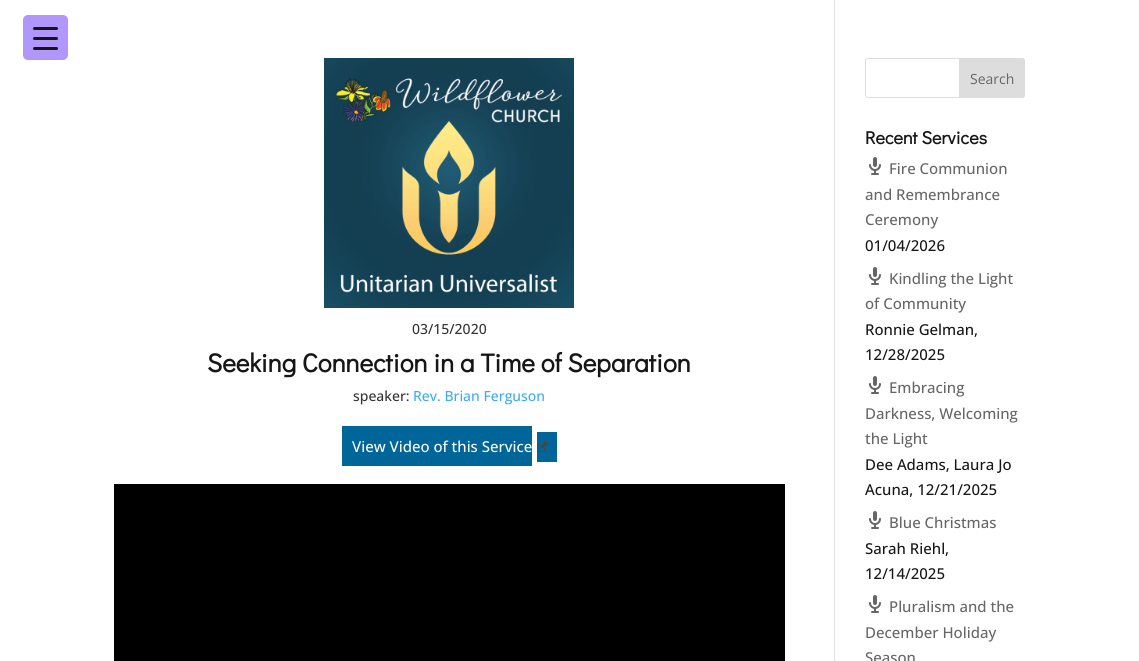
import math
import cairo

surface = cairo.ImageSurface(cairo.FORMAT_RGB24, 1139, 661)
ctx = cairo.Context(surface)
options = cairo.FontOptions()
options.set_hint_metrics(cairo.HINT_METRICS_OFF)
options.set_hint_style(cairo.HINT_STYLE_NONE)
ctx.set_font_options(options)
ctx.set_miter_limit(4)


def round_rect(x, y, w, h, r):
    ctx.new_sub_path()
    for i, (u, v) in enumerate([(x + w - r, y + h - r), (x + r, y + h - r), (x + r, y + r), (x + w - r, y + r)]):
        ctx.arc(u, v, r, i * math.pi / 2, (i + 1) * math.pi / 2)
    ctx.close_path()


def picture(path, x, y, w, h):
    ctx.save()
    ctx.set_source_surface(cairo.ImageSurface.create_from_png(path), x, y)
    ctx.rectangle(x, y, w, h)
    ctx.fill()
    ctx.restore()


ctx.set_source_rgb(1, 1, 1)
ctx.paint()
ctx.set_source_rgb(0.694, 0.592, 0.988)
round_rect(23, 15, 45, 45, 5)
ctx.fill()
ctx.set_source_rgb(0.086, 0.086, 0.086)
round_rect(33, 37, 25, 3, 1.5)
ctx.fill()
round_rect(33, 27, 25, 3, 1.5)
ctx.fill()
round_rect(33, 47, 25, 3, 1.5)
ctx.fill()
ctx.set_source_rgb(0.886, 0.886, 0.886)
ctx.rectangle(834, 0, 1, 661)
ctx.fill()
picture("img1.png", 324, 58, 250, 250)
ctx.select_font_face("Open Sans Medium")
ctx.set_font_size(14)
ctx.set_source_rgb(0.204, 0.204, 0.204)
ctx.move_to(412, 334)
ctx.show_text("03/15/2020")
ctx.select_font_face("Didact Gothic", cairo.FONT_SLANT_NORMAL, cairo.FONT_WEIGHT_BOLD)
ctx.set_font_size(26)
ctx.set_source_rgb(0.086, 0.086, 0.086)
ctx.move_to(207, 372)
ctx.show_text("Seeking Connection in a Time of Separation")
ctx.select_font_face("Open Sans Medium")
ctx.set_font_size(14)
ctx.set_source_rgb(0.204, 0.204, 0.204)
ctx.move_to(353, 401)
ctx.show_text("speaker:")
ctx.set_source_rgb(0.243, 0.671, 0.957)
ctx.move_to(413, 401)
ctx.show_text("Rev. Brian Ferguson")
ctx.set_source_rgb(0, 0.4, 0.6)
ctx.rectangle(342, 426, 190, 40)
ctx.fill()
ctx.rectangle(537, 432, 20, 30)
ctx.fill()
ctx.set_font_size(15)
ctx.set_source_rgb(1, 1, 1)
ctx.move_to(352, 452)
ctx.show_text("View Video of this Service")
picture("img2.png", 537, 442, 10, 10)
ctx.set_source_rgb(0, 0, 0)
ctx.rectangle(114, 484, 671, 177)
ctx.fill()
round_rect(865.5, 58.5, 159, 39, 2.5)
ctx.set_source_rgb(0.867, 0.867, 0.867)
ctx.set_line_width(1)
ctx.stroke()
ctx.new_path()
ctx.move_to(959.5, 58.5)
ctx.line_to(1022, 58.5)
ctx.curve_to(1023.5, 58.5, 1024.5, 59.5, 1024.5, 61)
ctx.line_to(1024.5, 95)
ctx.curve_to(1024.5, 96.5, 1023.5, 97.5, 1022, 97.5)
ctx.line_to(959.5, 97.5)
ctx.close_path()
ctx.fill_preserve()
ctx.stroke()
ctx.select_font_face("Open Sans")
ctx.set_font_size(14)
ctx.set_source_rgb(0.4, 0.4, 0.4)
ctx.move_to(970, 84)
ctx.show_text("Search")
ctx.select_font_face("Didact Gothic", cairo.FONT_SLANT_NORMAL, cairo.FONT_WEIGHT_BOLD)
ctx.set_font_size(18)
ctx.set_source_rgb(0.086, 0.086, 0.086)
ctx.move_to(865, 144)
ctx.show_text("Recent Services")
picture("img3.png", 869, 157, 12, 18)
ctx.select_font_face("Open Sans Medium")
ctx.set_font_size(15)
ctx.set_source_rgb(0.4, 0.4, 0.4)
ctx.move_to(889, 174)
ctx.show_text("Fire Communion")
ctx.move_to(865, 200)
ctx.show_text("and Remembrance")
ctx.move_to(865, 225)
ctx.show_text("Ceremony")
ctx.set_source_rgb(0.086, 0.086, 0.086)
ctx.move_to(865, 251)
ctx.show_text("01/04/2026")
picture("img3.png", 869, 267, 12, 18)
ctx.set_source_rgb(0.4, 0.4, 0.4)
ctx.move_to(889, 284)
ctx.show_text("Kindling the Light")
ctx.move_to(865, 309)
ctx.show_text("of Community")
ctx.set_source_rgb(0.086, 0.086, 0.086)
ctx.move_to(865, 335)
ctx.show_text("Ronnie Gelman,")
ctx.move_to(865, 360)
ctx.show_text("12/28/2025")
picture("img3.png", 869, 376, 12, 18)
ctx.set_source_rgb(0.4, 0.4, 0.4)
ctx.move_to(889, 393)
ctx.show_text("Embracing")
ctx.move_to(865, 419)
ctx.show_text("Darkness, Welcoming")
ctx.move_to(865, 444)
ctx.show_text("the Light")
ctx.set_source_rgb(0.086, 0.086, 0.086)
ctx.move_to(865, 470)
ctx.show_text("Dee Adams, Laura Jo")
ctx.move_to(865, 495)
ctx.show_text("Acuna, 12/21/2025")
picture("img3.png", 869, 511, 12, 18)
ctx.set_source_rgb(0.4, 0.4, 0.4)
ctx.move_to(889, 528)
ctx.show_text("Blue Christmas")
ctx.set_source_rgb(0.086, 0.086, 0.086)
ctx.move_to(865, 554)
ctx.show_text("Sarah Riehl,")
ctx.move_to(865, 579)
ctx.show_text("12/14/2025")
picture("img3.png", 869, 595, 12, 18)
ctx.set_source_rgb(0.4, 0.4, 0.4)
ctx.move_to(889, 612)
ctx.show_text("Pluralism and the")
ctx.move_to(865, 638)
ctx.show_text("December Holiday")
ctx.move_to(865, 663)
ctx.show_text("Season")
surface.write_to_png("page.png")
